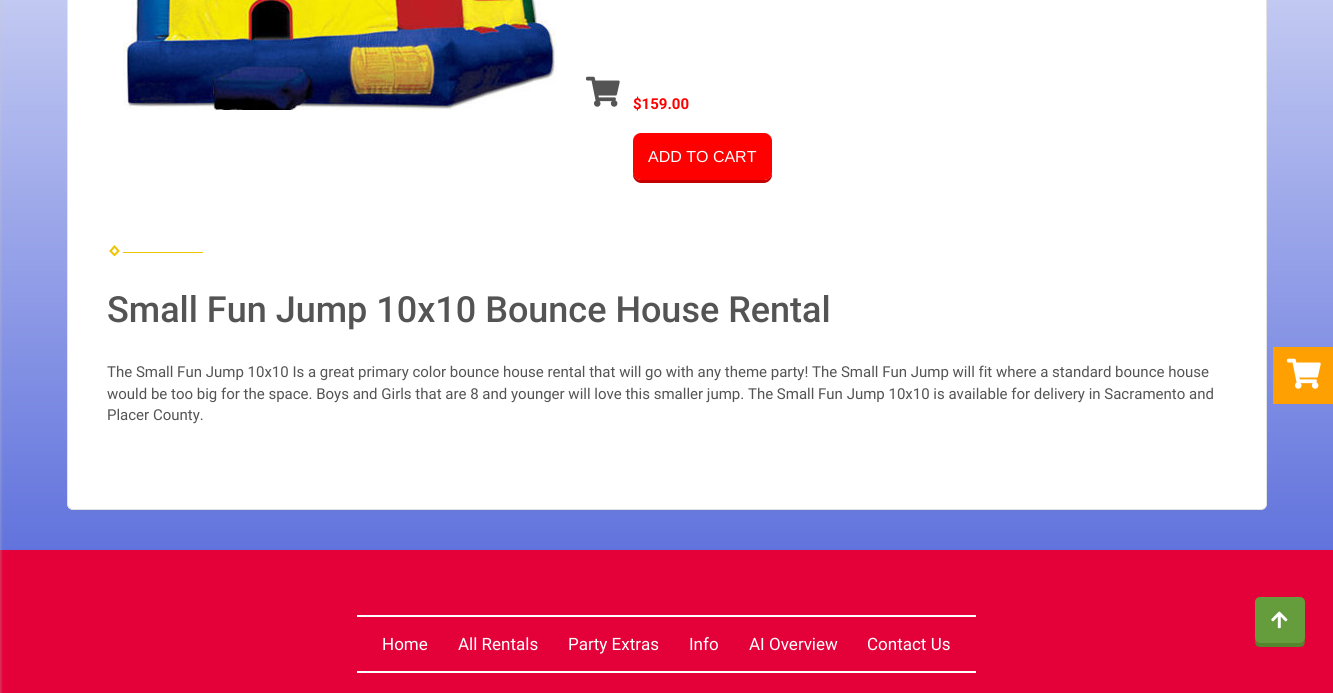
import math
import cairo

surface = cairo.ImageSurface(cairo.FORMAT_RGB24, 1333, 693)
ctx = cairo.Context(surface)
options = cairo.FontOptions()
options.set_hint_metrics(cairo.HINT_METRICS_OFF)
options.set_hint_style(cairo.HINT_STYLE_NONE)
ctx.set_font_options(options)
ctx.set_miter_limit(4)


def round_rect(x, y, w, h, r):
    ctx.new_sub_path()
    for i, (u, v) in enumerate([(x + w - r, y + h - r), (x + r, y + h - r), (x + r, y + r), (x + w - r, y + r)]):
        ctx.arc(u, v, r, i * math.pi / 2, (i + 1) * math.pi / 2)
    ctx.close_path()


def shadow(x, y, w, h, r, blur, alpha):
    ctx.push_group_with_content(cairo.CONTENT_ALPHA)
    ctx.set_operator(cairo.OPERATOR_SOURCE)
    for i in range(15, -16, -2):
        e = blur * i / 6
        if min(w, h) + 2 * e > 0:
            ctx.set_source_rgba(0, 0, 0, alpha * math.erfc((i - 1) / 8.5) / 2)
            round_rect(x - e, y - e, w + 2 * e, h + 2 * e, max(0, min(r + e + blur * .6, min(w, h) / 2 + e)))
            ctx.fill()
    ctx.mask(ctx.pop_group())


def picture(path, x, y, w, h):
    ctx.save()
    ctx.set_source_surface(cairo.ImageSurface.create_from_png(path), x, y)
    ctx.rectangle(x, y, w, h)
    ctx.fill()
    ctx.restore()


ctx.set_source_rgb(0.894, 0, 0.224)
ctx.paint()
gradient = cairo.LinearGradient(667, 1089, 667, -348)
gradient.add_color_stop_rgba(0, 0.012, 0.122, 0.784, 1)
gradient.add_color_stop_rgba(1, 1, 1, 1, 1)
ctx.set_source(gradient)
ctx.rectangle(0, 0, 1333, 550)
ctx.fill()
ctx.set_source_rgb(0.78, 0.78, 0.78)
shadow(-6, 0, 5, 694, 0, 2, 1)
ctx.set_source_rgb(1, 1, 1)
round_rect(67.5, -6.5, 1199, 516, 5.5)
ctx.fill_preserve()
ctx.set_source_rgb(0.89, 0.89, 0.89)
ctx.set_line_width(1)
ctx.stroke()
picture("img1.png", 123, 0, 434, 110)
picture("img2.png", 586, 76, 34, 31)
ctx.select_font_face("Roboto", cairo.FONT_SLANT_NORMAL, cairo.FONT_WEIGHT_BOLD)
ctx.set_font_size(15)
ctx.set_source_rgb(1, 0, 0)
ctx.move_to(633, 109)
ctx.show_text("$159.00")
ctx.set_source_rgb(0.773, 0, 0)
ctx.new_path()
ctx.move_to(633, 172)
ctx.line_to(633, 175)
ctx.curve_to(633, 179, 637, 183, 641, 183)
ctx.line_to(764, 183)
ctx.curve_to(768, 183, 772, 179, 772, 175)
ctx.line_to(772, 172)
ctx.curve_to(772, 176, 768, 180, 764, 180)
ctx.line_to(641, 180)
ctx.curve_to(637, 180, 633, 176, 633, 172)
ctx.close_path()
ctx.fill()
ctx.set_source_rgb(1, 0, 0)
round_rect(633, 133, 139, 47, 8)
ctx.fill()
ctx.select_font_face("Liberation Sans")
ctx.set_font_size(16)
ctx.set_source_rgb(1, 1, 1)
ctx.move_to(648, 162)
ctx.show_text("ADD TO CART")
ctx.new_path()
ctx.move_to(114.5, 246.5)
ctx.line_to(118.5, 251)
ctx.line_to(114.5, 255)
ctx.line_to(110.5, 251)
ctx.close_path()
ctx.set_source_rgb(0.933, 0.769, 0)
ctx.set_line_width(2)
ctx.stroke()
ctx.rectangle(123, 252, 80, 1)
ctx.fill()
ctx.select_font_face("Roboto Medium")
ctx.set_font_size(36)
ctx.set_source_rgb(0.329, 0.329, 0.329)
ctx.move_to(107, 322)
ctx.show_text("Small Fun Jump 10x10 Bounce House Rental")
ctx.select_font_face("Roboto")
ctx.set_font_size(15)
ctx.move_to(107, 377)
ctx.show_text("The Small Fun Jump 10x10 Is a great primary color bounce house rental that will go with any theme party! The Small Fun Jump will fit where a standard bounce house")
ctx.move_to(107, 399)
ctx.show_text("would be too big for the space. Boys and Girls that are 8 and younger will love this smaller jump. The Small Fun Jump 10x10 is available for delivery in Sacramento and")
ctx.move_to(107, 420)
ctx.show_text("Placer County.")
ctx.set_source_rgb(1, 1, 1)
ctx.rectangle(357, 615, 619, 2)
ctx.fill()
ctx.rectangle(357, 671, 619, 2)
ctx.fill()
ctx.set_font_size(17)
ctx.move_to(382, 650)
ctx.show_text("Home")
ctx.move_to(458, 650)
ctx.show_text("All Rentals")
ctx.move_to(568, 650)
ctx.show_text("Party Extras")
ctx.move_to(689, 650)
ctx.show_text("Info")
ctx.move_to(749, 650)
ctx.show_text("AI Overview")
ctx.move_to(867, 650)
ctx.show_text("Contact Us")
ctx.set_source_rgb(0.329, 0.525, 0.18)
ctx.new_path()
ctx.move_to(1255, 638)
ctx.curve_to(1255, 648, 1257, 647, 1267, 647)
ctx.line_to(1293, 647)
ctx.curve_to(1303, 647, 1305, 648, 1305, 638)
ctx.curve_to(1305, 641, 1303, 643, 1300, 643)
ctx.line_to(1260, 643)
ctx.curve_to(1257, 643, 1255, 641, 1255, 638)
ctx.close_path()
ctx.fill()
ctx.set_source_rgb(0.396, 0.612, 0.235)
round_rect(1255, 597, 50, 46, 5)
ctx.fill()
picture("img3.png", 1271, 611, 17, 18)
ctx.set_source_rgb(1, 0.627, 0.008)
ctx.rectangle(1273, 347, 60, 57)
ctx.fill()
picture("img4.png", 1287, 358, 34, 31)
surface.write_to_png("page.png")
